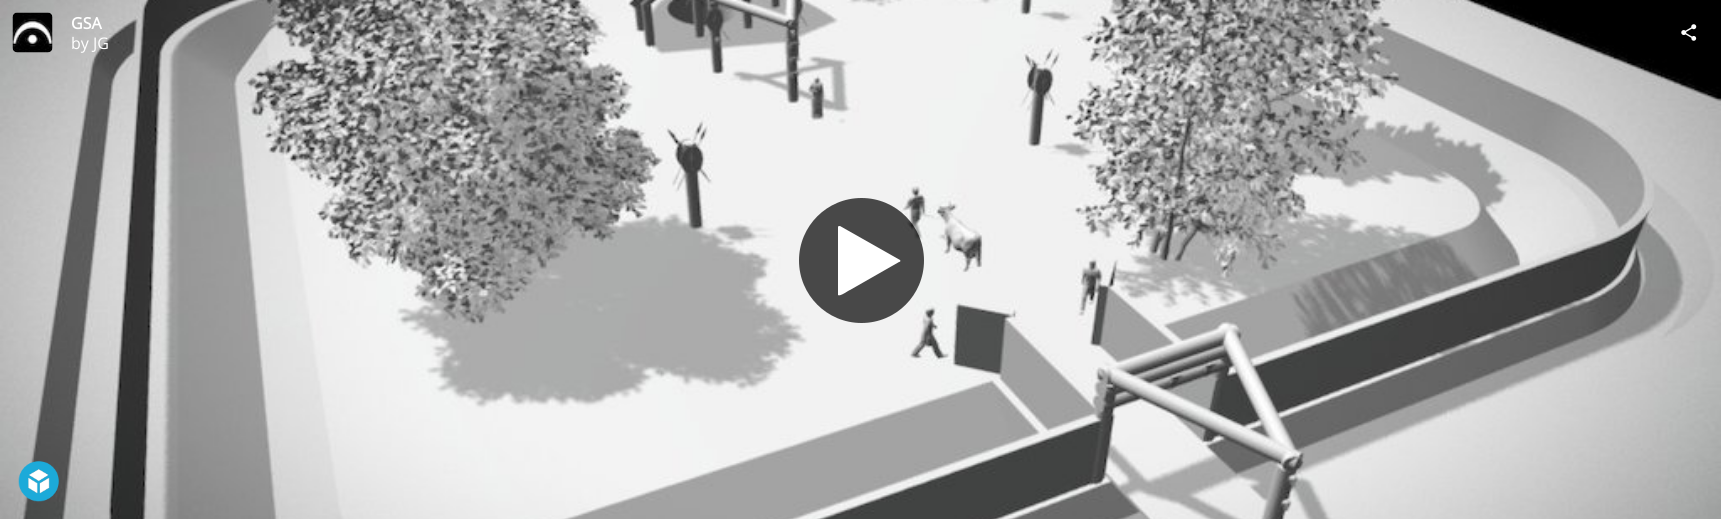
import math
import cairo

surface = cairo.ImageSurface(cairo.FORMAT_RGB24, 1721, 519)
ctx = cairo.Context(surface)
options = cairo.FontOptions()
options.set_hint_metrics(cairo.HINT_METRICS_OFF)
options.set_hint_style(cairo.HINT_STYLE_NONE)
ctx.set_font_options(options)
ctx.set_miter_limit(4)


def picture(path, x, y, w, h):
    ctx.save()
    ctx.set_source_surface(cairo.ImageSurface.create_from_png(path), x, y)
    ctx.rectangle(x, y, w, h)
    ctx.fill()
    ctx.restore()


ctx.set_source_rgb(1, 1, 1)
ctx.paint()
picture("img1.png", 0, 0, 1721, 519)
ctx.set_source_rgba(0, 0, 0, 0.7)
ctx.arc(861.5, 260.5, 62.5, 0, 2 * math.pi)
ctx.fill()
ctx.set_source_rgb(1, 1, 1)
ctx.new_path()
ctx.move_to(899, 262)
ctx.line_to(850, 290)
ctx.curve_to(849, 290, 840, 297, 838, 295)
ctx.line_to(838, 227)
ctx.curve_to(838, 226, 839, 226, 840, 226)
ctx.line_to(900, 260)
ctx.curve_to(901, 261, 900, 262, 899, 262)
ctx.close_path()
ctx.fill()
picture("img2.png", 18, 461, 41, 41)
picture("img3.png", 12, 12, 41, 41)
ctx.select_font_face("Open Sans", cairo.FONT_SLANT_NORMAL, cairo.FONT_WEIGHT_BOLD)
ctx.set_font_size(16)
ctx.move_to(71, 29)
ctx.show_text("GSA")
ctx.select_font_face("Open Sans")
ctx.move_to(71, 49)
ctx.show_text("by JG")
picture("img4.png", 1681, 24, 16, 17)
surface.write_to_png("page.png")
